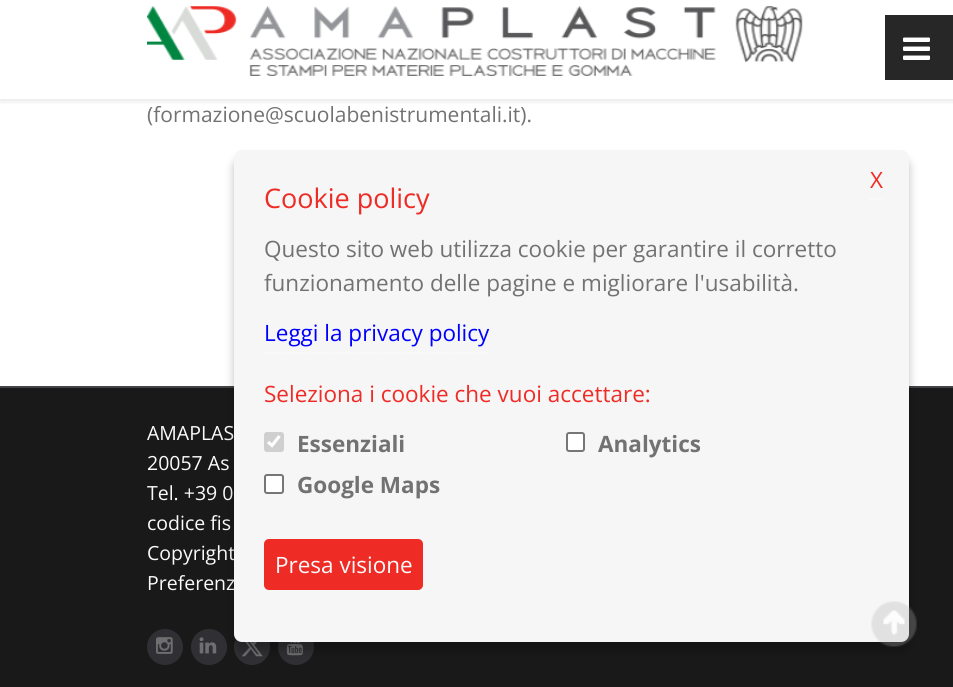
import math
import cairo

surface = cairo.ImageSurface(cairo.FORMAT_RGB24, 953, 687)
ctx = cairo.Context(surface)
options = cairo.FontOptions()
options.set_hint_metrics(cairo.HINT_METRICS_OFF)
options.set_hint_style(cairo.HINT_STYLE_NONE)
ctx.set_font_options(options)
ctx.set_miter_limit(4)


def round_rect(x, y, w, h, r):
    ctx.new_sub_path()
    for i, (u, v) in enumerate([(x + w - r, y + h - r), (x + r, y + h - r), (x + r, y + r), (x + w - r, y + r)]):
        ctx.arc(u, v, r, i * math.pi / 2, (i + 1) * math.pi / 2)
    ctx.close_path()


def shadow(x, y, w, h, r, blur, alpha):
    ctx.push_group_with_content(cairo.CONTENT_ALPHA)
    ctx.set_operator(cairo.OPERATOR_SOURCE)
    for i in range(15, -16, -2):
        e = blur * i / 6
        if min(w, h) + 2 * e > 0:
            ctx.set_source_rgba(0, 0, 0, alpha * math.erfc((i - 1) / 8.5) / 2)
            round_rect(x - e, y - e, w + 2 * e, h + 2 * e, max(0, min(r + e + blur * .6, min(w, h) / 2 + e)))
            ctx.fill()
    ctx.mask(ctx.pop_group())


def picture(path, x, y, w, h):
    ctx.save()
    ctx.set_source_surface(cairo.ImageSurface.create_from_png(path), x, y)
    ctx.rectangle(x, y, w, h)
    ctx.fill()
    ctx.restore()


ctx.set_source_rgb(1, 1, 1)
ctx.paint()
ctx.save()
ctx.rectangle(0, 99, 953, 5)
ctx.clip()
ctx.set_source_rgb(0, 0, 0)
shadow(0, 2, 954, 99, 0, 3, 0.1)
ctx.restore()
picture("img1.png", 147, 6, 656, 70)
ctx.set_source_rgb(0.153, 0.153, 0.153)
ctx.rectangle(885, 15, 68, 65)
ctx.fill()
picture("img2.png", 903, 37, 27, 23)
ctx.select_font_face("Open Sans")
ctx.set_font_size(21)
ctx.set_source_rgb(0.447, 0.447, 0.447)
ctx.move_to(147, 122)
ctx.show_text("(formazione@scuolabenistrumentali.it).")
ctx.set_source_rgb(0.098, 0.098, 0.098)
ctx.rectangle(0, 388, 953, 299)
ctx.fill()
ctx.set_source_rgb(0.259, 0.259, 0.278)
ctx.rectangle(0, 386, 953, 2)
ctx.fill()
ctx.set_font_size(19.5)
ctx.set_source_rgb(0.98, 0.98, 0.98)
ctx.move_to(147, 440)
ctx.show_text("AMAPLAS")
ctx.move_to(147, 470)
ctx.show_text("20057 As")
ctx.move_to(147, 500)
ctx.show_text("Tel. +39 0")
ctx.move_to(147, 530)
ctx.show_text("codice fis")
ctx.move_to(147, 560)
ctx.show_text("Copyright")
ctx.move_to(147, 590)
ctx.show_text("Preferenz")
ctx.set_source_rgb(0.188, 0.188, 0.204)
ctx.new_path()
ctx.arc(165, 647, 18, 0, 2 * math.pi)
ctx.fill()
picture("img3.png", 156, 637, 17, 17)
ctx.arc(209, 647, 18, 0, 2 * math.pi)
ctx.fill()
picture("img4.png", 199, 637, 18, 17)
ctx.arc(252, 647, 18, 0, 2 * math.pi)
ctx.fill()
picture("img5.png", 241, 642, 22, 15)
ctx.arc(296, 647, 18, 0, 2 * math.pi)
ctx.fill()
picture("img6.png", 286, 642, 17, 14)
ctx.set_source_rgb(0, 0, 0)
shadow(234, 159, 675, 492, 8, 4.5, 0.25)
ctx.set_source_rgb(0.961, 0.961, 0.961)
round_rect(234, 150, 675, 492, 8)
ctx.fill()
picture("img7.png", 871, 601, 46, 46)
ctx.new_path()
ctx.move_to(870, 199)
ctx.line_to(883.5, 199)
ctx.set_source_rgb(0.992, 0.992, 0.992)
ctx.set_line_width(1.5)
ctx.set_dash([1.5, 1.5])
ctx.stroke()
ctx.set_font_size(22.5)
ctx.set_source_rgb(0.933, 0.169, 0.145)
ctx.move_to(870, 188)
ctx.show_text("X")
ctx.set_font_size(27)
ctx.move_to(264, 208)
ctx.show_text("Cookie policy")
ctx.set_font_size(22.5)
ctx.set_source_rgb(0.447, 0.447, 0.447)
ctx.move_to(264, 257)
ctx.show_text("Questo sito web utilizza cookie per garantire il corretto")
ctx.move_to(264, 291)
ctx.show_text("funzionamento delle pagine e migliorare l'usabilità.")
ctx.new_path()
ctx.move_to(264, 353)
ctx.line_to(489, 353)
ctx.set_source_rgb(0.992, 0.992, 0.992)
ctx.stroke()
ctx.set_source_rgb(0, 0, 1)
ctx.move_to(264, 341)
ctx.show_text("Leggi la privacy policy")
ctx.set_source_rgb(0.933, 0.169, 0.145)
ctx.move_to(264, 402)
ctx.show_text("Seleziona i cookie che vuoi accettare:")
ctx.set_source_rgb(0.812, 0.812, 0.812)
round_rect(264, 432, 20, 20, 3)
ctx.fill()
ctx.new_path()
ctx.move_to(268, 442)
ctx.line_to(272, 445.5)
ctx.line_to(279.5, 436)
ctx.set_source_rgb(1, 1, 1)
ctx.set_line_width(3.1)
ctx.set_dash([])
ctx.stroke()
ctx.select_font_face("Open Sans", cairo.FONT_SLANT_NORMAL, cairo.FONT_WEIGHT_BOLD)
ctx.set_source_rgb(0.447, 0.447, 0.447)
ctx.move_to(297, 452)
ctx.show_text("Essenziali")
ctx.set_source_rgb(1, 1, 1)
round_rect(567, 433, 17, 18, 2)
ctx.fill_preserve()
ctx.set_source_rgb(0.463, 0.463, 0.463)
ctx.set_line_width(2)
ctx.stroke()
ctx.set_source_rgb(0.447, 0.447, 0.447)
ctx.move_to(598, 452)
ctx.show_text("Analytics")
ctx.set_source_rgb(1, 1, 1)
round_rect(265, 475, 18, 18, 2)
ctx.fill_preserve()
ctx.set_source_rgb(0.463, 0.463, 0.463)
ctx.stroke()
ctx.set_source_rgb(0.447, 0.447, 0.447)
ctx.move_to(297, 493)
ctx.show_text("Google Maps")
ctx.set_source_rgb(0.933, 0.169, 0.145)
round_rect(264, 539, 159, 51, 5)
ctx.fill()
ctx.select_font_face("Open Sans")
ctx.set_source_rgb(0.98, 0.98, 0.98)
ctx.move_to(275, 573)
ctx.show_text("Presa visione")
surface.write_to_png("page.png")
